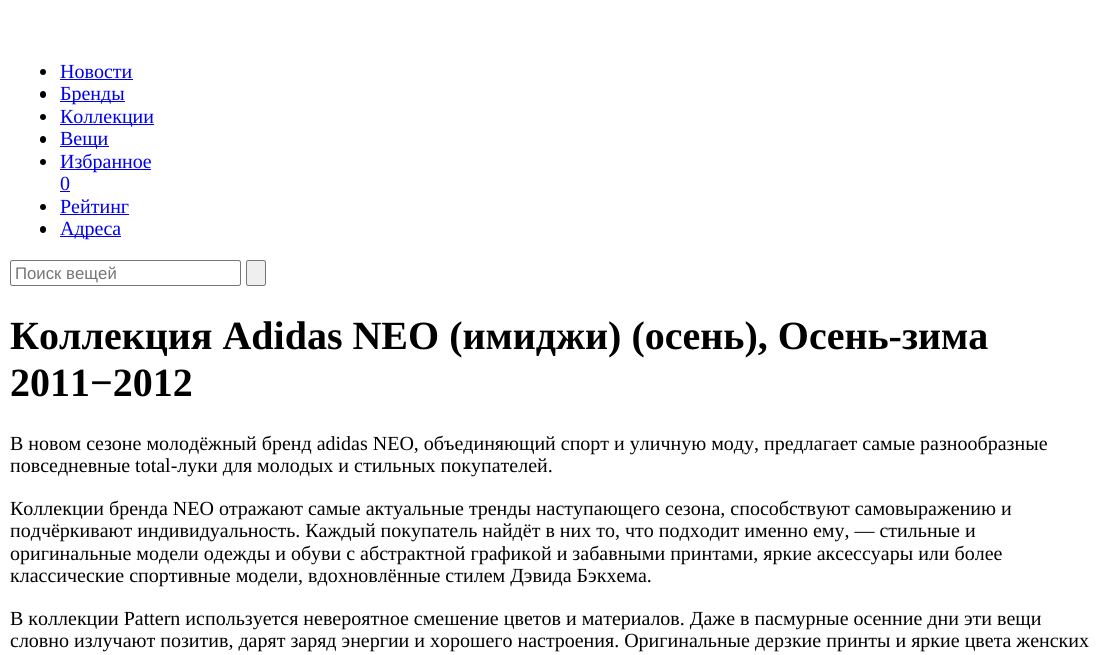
import math
import cairo

surface = cairo.ImageSurface(cairo.FORMAT_RGB24, 1109, 655)
ctx = cairo.Context(surface)
options = cairo.FontOptions()
options.set_hint_metrics(cairo.HINT_METRICS_OFF)
options.set_hint_style(cairo.HINT_STYLE_NONE)
ctx.set_font_options(options)
ctx.set_miter_limit(4)


def round_rect(x, y, w, h, r):
    ctx.new_sub_path()
    for i, (u, v) in enumerate([(x + w - r, y + h - r), (x + r, y + h - r), (x + r, y + r), (x + w - r, y + r)]):
        ctx.arc(u, v, r, i * math.pi / 2, (i + 1) * math.pi / 2)
    ctx.close_path()


ctx.set_source_rgb(1, 1, 1)
ctx.paint()
ctx.set_source_rgb(0, 0, 0)
ctx.arc(43, 72, 3, 0, 2 * math.pi)
ctx.fill()
ctx.select_font_face("Liberation Serif")
ctx.set_font_size(20)
ctx.set_source_rgb(0, 0, 0.933)
ctx.move_to(60, 78)
ctx.show_text("Новости")
ctx.rectangle(60, 79, 73, 1)
ctx.fill()
ctx.set_source_rgb(0, 0, 0)
round_rect(40, 91, 6, 7, 3)
ctx.fill()
ctx.set_source_rgb(0, 0, 0.933)
ctx.rectangle(60, 101, 65, 1)
ctx.fill()
ctx.move_to(60, 100)
ctx.show_text("Бренды")
ctx.set_source_rgb(0, 0, 0)
ctx.new_path()
ctx.arc(43, 117, 3, 0, 2 * math.pi)
ctx.fill()
ctx.set_source_rgb(0, 0, 0.933)
ctx.rectangle(60, 124, 94, 1)
ctx.fill()
ctx.move_to(60, 123)
ctx.show_text("Коллекции")
ctx.set_source_rgb(0, 0, 0)
round_rect(40, 136, 6, 7, 3)
ctx.fill()
ctx.set_source_rgb(0, 0, 0.933)
ctx.rectangle(60, 146, 49, 1)
ctx.fill()
ctx.move_to(60, 145)
ctx.show_text("Вещи")
ctx.set_source_rgb(0, 0, 0)
ctx.new_path()
ctx.arc(43, 162, 3, 0, 2 * math.pi)
ctx.fill()
ctx.set_source_rgb(0, 0, 0.933)
ctx.rectangle(60, 169, 91, 1)
ctx.fill()
ctx.move_to(60, 168)
ctx.show_text("Избранное")
ctx.move_to(60, 190)
ctx.show_text("0")
ctx.rectangle(60, 191, 10, 1)
ctx.fill()
ctx.set_source_rgb(0, 0, 0)
ctx.arc(43, 207, 3, 0, 2 * math.pi)
ctx.fill()
ctx.set_source_rgb(0, 0, 0.933)
ctx.move_to(60, 213)
ctx.show_text("Рейтинг")
ctx.rectangle(60, 214, 69, 1)
ctx.fill()
ctx.set_source_rgb(0, 0, 0)
round_rect(40, 226, 6, 7, 3)
ctx.fill()
ctx.set_source_rgb(0, 0, 0.933)
ctx.rectangle(60, 236, 61, 1)
ctx.fill()
ctx.move_to(60, 235)
ctx.show_text("Адреса")
round_rect(10.5, 260.5, 230, 25, 2)
ctx.set_source_rgb(0.463, 0.463, 0.463)
ctx.set_line_width(1)
ctx.stroke()
ctx.select_font_face("Liberation Sans")
ctx.set_font_size(16.75)
ctx.set_source_rgb(0.459, 0.459, 0.459)
ctx.move_to(15, 279)
ctx.show_text("Поиск вещей")
ctx.set_source_rgb(0.937, 0.937, 0.937)
round_rect(246.5, 260.5, 19, 25, 2)
ctx.fill_preserve()
ctx.set_source_rgb(0.463, 0.463, 0.463)
ctx.stroke()
ctx.select_font_face("Liberation Serif", cairo.FONT_SLANT_NORMAL, cairo.FONT_WEIGHT_BOLD)
ctx.set_font_size(40)
ctx.set_source_rgb(0, 0, 0)
ctx.move_to(10, 349)
ctx.show_text("Коллекция Adidas NEO (имиджи) (осень), Осень-зима")
ctx.move_to(10, 396)
ctx.show_text("2011−2012")
ctx.select_font_face("Liberation Serif")
ctx.set_font_size(20)
ctx.move_to(10, 450)
ctx.show_text("В новом сезоне молодёжный бренд adidas NEO, объединяющий спорт и уличную моду, предлагает самые разнообразные")
ctx.move_to(10, 472)
ctx.show_text("повседневные total-луки для молодых и стильных покупателей.")
ctx.move_to(10, 515)
ctx.show_text("Коллекции бренда NEO отражают самые актуальные тренды наступающего сезона, способствуют самовыражению и")
ctx.move_to(10, 537)
ctx.show_text("подчёркивают индивидуальность. Каждый покупатель найдёт в них то, что подходит именно ему, — стильные и")
ctx.move_to(10, 560)
ctx.show_text("оригинальные модели одежды и обуви с абстрактной графикой и забавными принтами, яркие аксессуары или более")
ctx.move_to(10, 582)
ctx.show_text("классические спортивные модели, вдохновлённые стилем Дэвида Бэкхема.")
ctx.move_to(10, 625)
ctx.show_text("В коллекции Pattern используется невероятное смешение цветов и материалов. Даже в пасмурные осенние дни эти вещи")
ctx.move_to(10, 647)
ctx.show_text("словно излучают позитив, дарят заряд энергии и хорошего настроения. Оригинальные дерзкие принты и яркие цвета женских")
surface.write_to_png("page.png")
